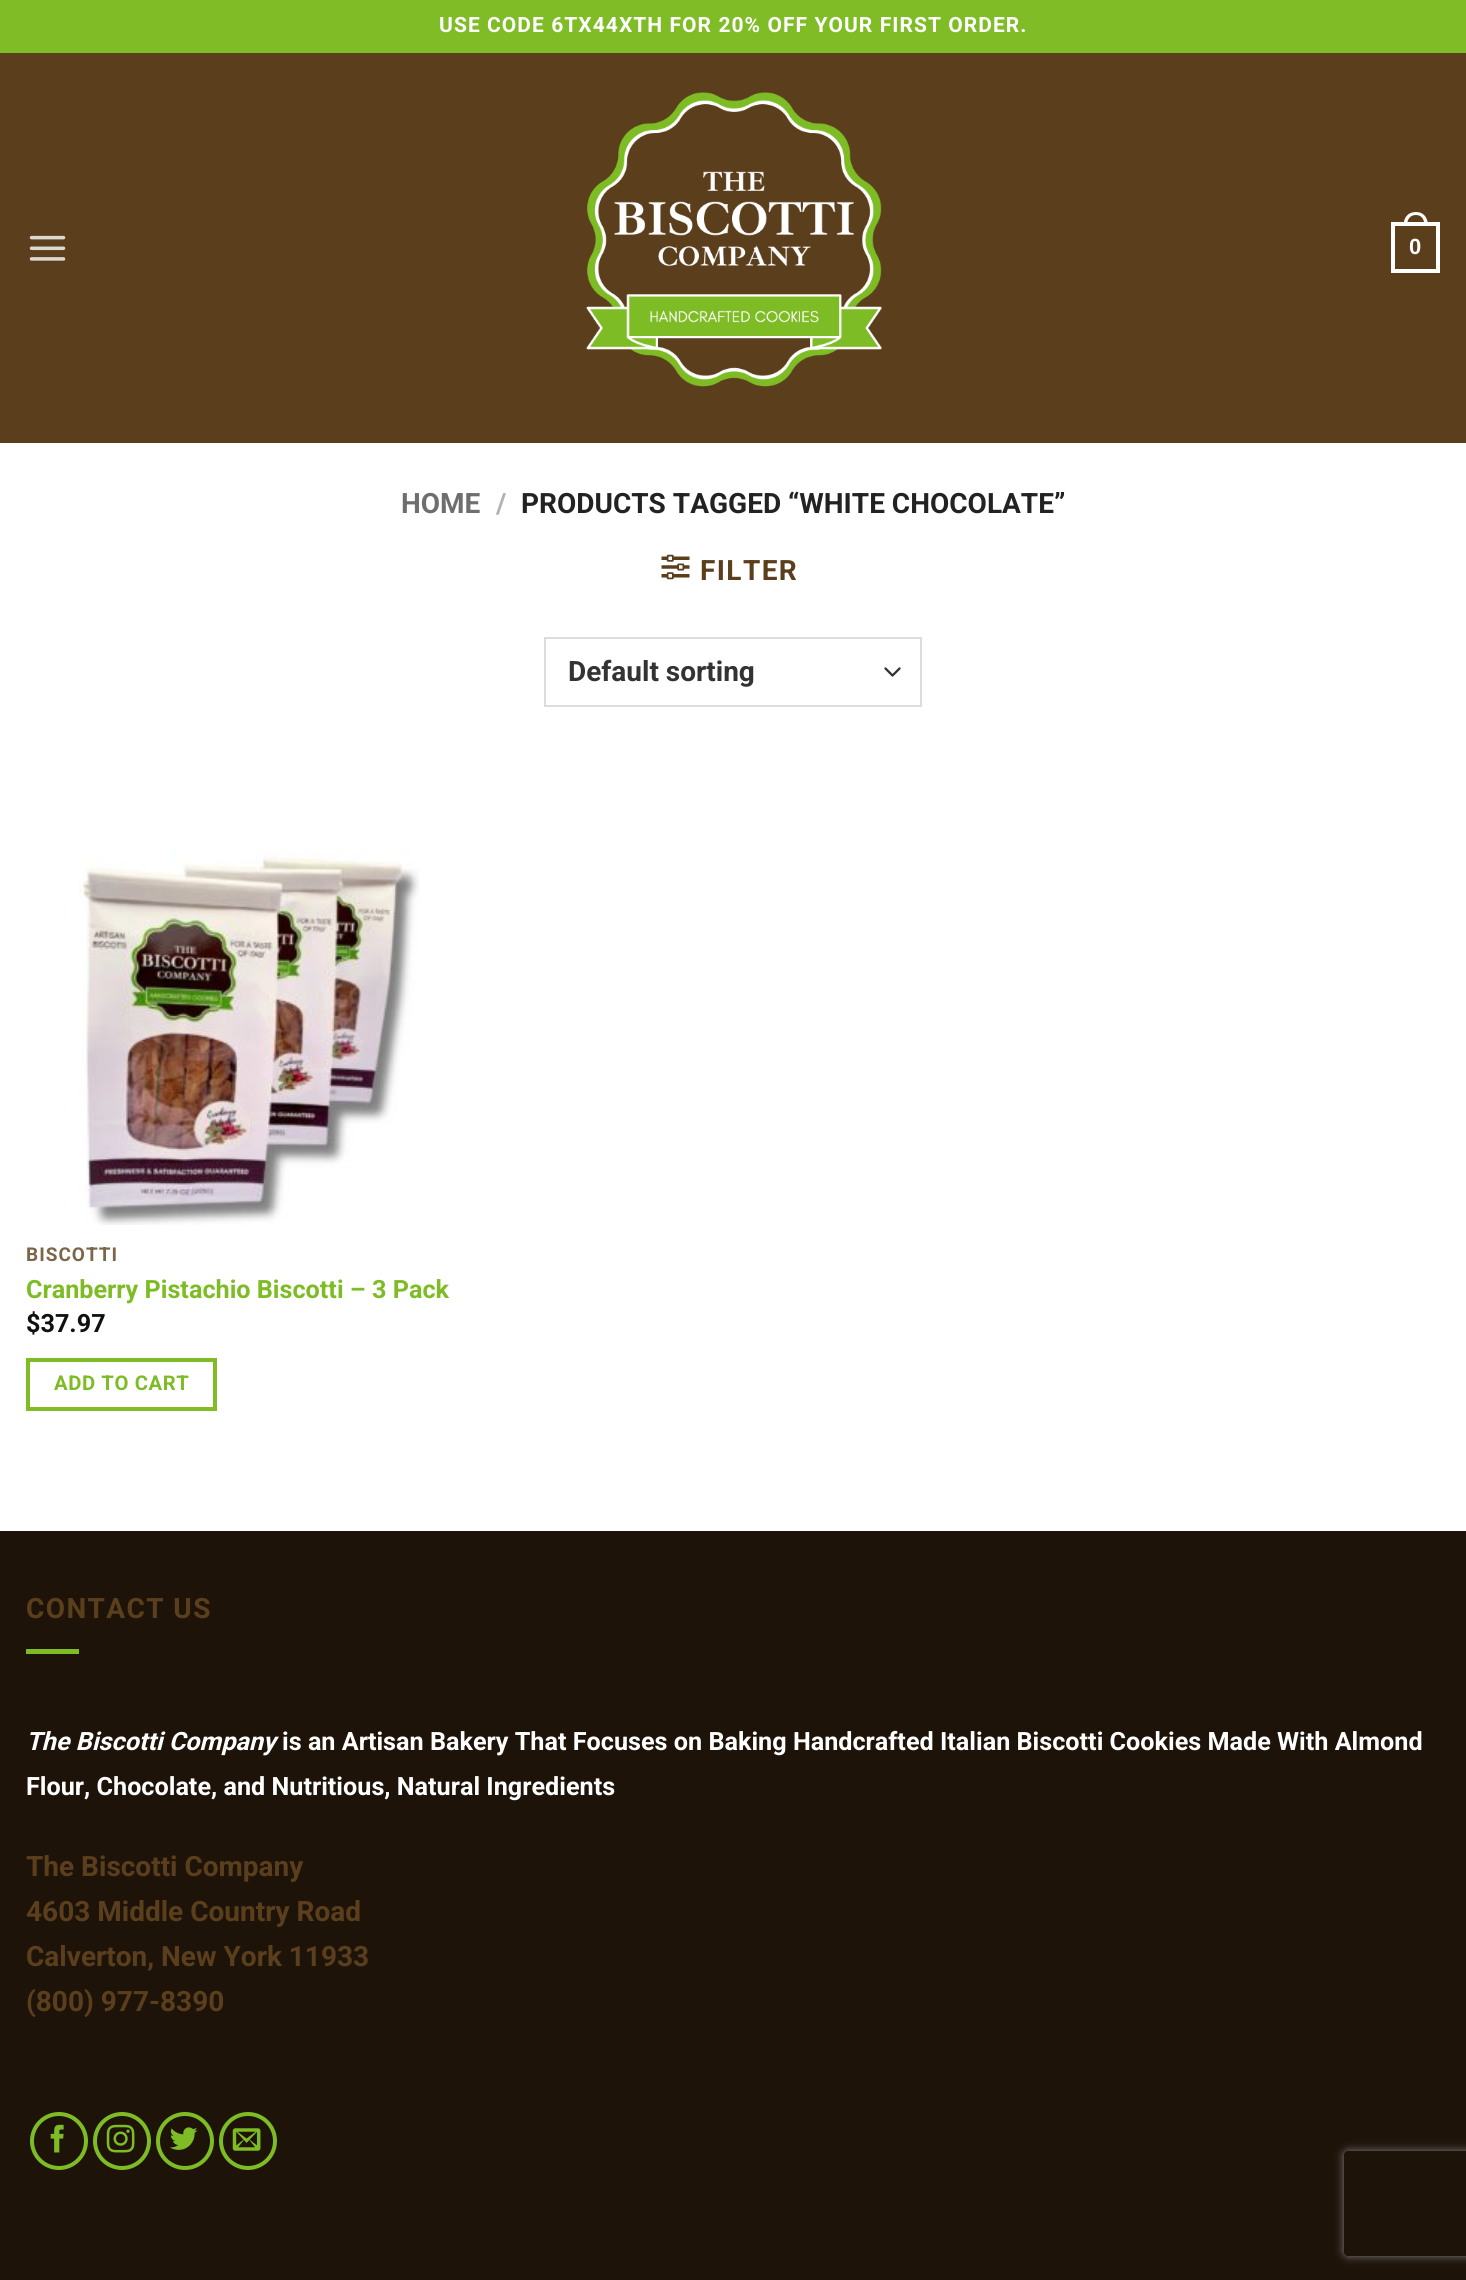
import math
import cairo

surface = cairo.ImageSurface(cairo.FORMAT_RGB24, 1466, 2280)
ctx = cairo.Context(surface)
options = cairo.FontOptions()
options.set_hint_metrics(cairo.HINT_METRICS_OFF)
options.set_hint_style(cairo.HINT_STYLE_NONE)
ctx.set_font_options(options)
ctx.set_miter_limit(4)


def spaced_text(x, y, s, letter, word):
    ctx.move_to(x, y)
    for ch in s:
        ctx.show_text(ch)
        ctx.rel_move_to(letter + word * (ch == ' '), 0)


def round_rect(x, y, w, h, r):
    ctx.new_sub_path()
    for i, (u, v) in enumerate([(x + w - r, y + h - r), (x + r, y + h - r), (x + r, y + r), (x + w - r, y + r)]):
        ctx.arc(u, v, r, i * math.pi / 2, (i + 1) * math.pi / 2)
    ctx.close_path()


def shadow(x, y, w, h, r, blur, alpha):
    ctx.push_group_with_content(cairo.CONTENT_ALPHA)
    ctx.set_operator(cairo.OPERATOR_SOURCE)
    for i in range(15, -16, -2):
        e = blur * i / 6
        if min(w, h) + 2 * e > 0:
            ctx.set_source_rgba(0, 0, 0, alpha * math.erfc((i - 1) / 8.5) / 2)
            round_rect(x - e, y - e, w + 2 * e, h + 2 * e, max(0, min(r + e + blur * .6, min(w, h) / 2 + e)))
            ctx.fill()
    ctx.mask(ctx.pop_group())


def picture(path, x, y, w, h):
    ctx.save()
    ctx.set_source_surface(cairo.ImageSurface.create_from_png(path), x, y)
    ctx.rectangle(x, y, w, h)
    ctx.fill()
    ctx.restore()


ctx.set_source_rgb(1, 1, 1)
ctx.paint()
ctx.set_source_rgb(0.498, 0.737, 0.149)
ctx.rectangle(0, 0, 1466, 53)
ctx.fill()
ctx.select_font_face("Roboto", cairo.FONT_SLANT_NORMAL, cairo.FONT_WEIGHT_BOLD)
ctx.set_font_size(21)
ctx.set_source_rgb(1, 1, 1)
spaced_text(439, 32, "USE CODE 6TX44XTH FOR 20% OFF YOUR FIRST ORDER.", 1.05, 0)
ctx.set_source_rgb(0.357, 0.243, 0.11)
ctx.rectangle(0, 53, 1466, 390)
ctx.fill()
picture("img1.png", 29, 235, 37, 26)
picture("img2.png", 586, 92, 296, 295)
ctx.rectangle(1393, 224, 45, 47)
ctx.set_source_rgb(1, 1, 1)
ctx.set_line_width(4)
ctx.stroke()
ctx.set_fill_rule(cairo.FILL_RULE_EVEN_ODD)
ctx.new_path()
ctx.move_to(1416, 212)
ctx.curve_to(1424, 212, 1428, 218, 1428, 226)
ctx.line_to(1403.5, 226)
ctx.curve_to(1403.5, 218, 1407.5, 212, 1416, 212)
ctx.close_path()
ctx.move_to(1416, 215)
ctx.curve_to(1422, 215, 1424.5, 220, 1424.5, 226)
ctx.line_to(1407, 226)
ctx.curve_to(1407, 220, 1409.5, 215, 1416, 215)
ctx.close_path()
ctx.fill()
ctx.select_font_face("Liberation Sans", cairo.FONT_SLANT_NORMAL, cairo.FONT_WEIGHT_BOLD)
ctx.set_font_size(22)
ctx.move_to(1409, 254)
ctx.show_text("0")
ctx.select_font_face("Roboto", cairo.FONT_SLANT_NORMAL, cairo.FONT_WEIGHT_BOLD)
ctx.set_font_size(28)
ctx.set_source_rgb(0.431, 0.431, 0.431)
ctx.move_to(401, 513)
ctx.show_text("HOME")
ctx.set_source_rgb(0.698, 0.698, 0.698)
ctx.move_to(496, 513)
ctx.show_text("/")
ctx.set_source_rgb(0.133, 0.133, 0.133)
ctx.move_to(521, 513)
ctx.show_text("PRODUCTS TAGGED “WHITE CHOCOLATE”")
picture("img3.png", 661, 554, 29, 26)
ctx.set_source_rgb(0.357, 0.243, 0.11)
spaced_text(700, 580, "FILTER", 1.4, 0)
ctx.new_path()
ctx.move_to(885.5, 668.5)
ctx.line_to(892.5, 675.5)
ctx.line_to(899.5, 668.5)
ctx.set_source_rgb(0.2, 0.2, 0.2)
ctx.set_line_width(2.3)
ctx.set_line_cap(cairo.LINE_CAP_ROUND)
ctx.set_line_join(cairo.LINE_JOIN_ROUND)
ctx.stroke()
ctx.rectangle(545, 638, 376, 68)
ctx.set_source_rgb(0.867, 0.867, 0.867)
ctx.set_line_width(2)
ctx.set_line_cap(cairo.LINE_CAP_BUTT)
ctx.set_line_join(cairo.LINE_JOIN_MITER)
ctx.stroke()
ctx.set_source_rgb(0.2, 0.2, 0.2)
ctx.move_to(568, 681)
ctx.show_text("Default sorting")
picture("img4.png", 78, 849, 342, 376)
ctx.set_font_size(19)
ctx.set_source_rgb(0.486, 0.396, 0.286)
spaced_text(26, 1261, "BISCOTTI", 1, 0)
ctx.set_font_size(25.2)
ctx.set_source_rgb(0.494, 0.737, 0.145)
ctx.move_to(26, 1298)
ctx.show_text("Cranberry Pistachio Biscotti – 3 Pack")
ctx.set_source_rgb(0.067, 0.067, 0.067)
ctx.move_to(26, 1332)
ctx.show_text("$37.97")
ctx.rectangle(28, 1360, 187, 49)
ctx.set_source_rgb(0.498, 0.737, 0.149)
ctx.set_line_width(4)
ctx.stroke()
ctx.set_font_size(20.25)
ctx.set_source_rgb(0.494, 0.737, 0.145)
spaced_text(54, 1390, "ADD TO CART", 0.6, 0)
ctx.set_source_rgb(0.118, 0.078, 0.039)
ctx.rectangle(0, 1531, 1466, 749)
ctx.fill()
ctx.set_font_size(28)
ctx.set_source_rgb(0.357, 0.243, 0.11)
spaced_text(26, 1618, "CONTACT US", 1.4, 0)
ctx.set_source_rgb(0.494, 0.737, 0.145)
ctx.rectangle(26, 1649, 53, 5)
ctx.fill()
ctx.select_font_face("Roboto", cairo.FONT_SLANT_ITALIC, cairo.FONT_WEIGHT_BOLD)
ctx.set_font_size(25.2)
ctx.set_source_rgb(1, 1, 1)
ctx.move_to(26, 1750)
ctx.show_text("The Biscotti Company")
ctx.select_font_face("Roboto", cairo.FONT_SLANT_NORMAL, cairo.FONT_WEIGHT_BOLD)
ctx.move_to(282, 1750)
ctx.show_text("is an Artisan Bakery That Focuses on Baking Handcrafted Italian Biscotti Cookies Made With Almond")
ctx.move_to(26, 1795)
ctx.show_text("Flour, Chocolate, and Nutritious, Natural Ingredients")
ctx.set_font_size(28)
ctx.set_source_rgb(0.357, 0.243, 0.11)
ctx.move_to(26, 1876)
ctx.show_text("The Biscotti Company")
ctx.move_to(26, 1921)
ctx.show_text("4603 Middle Country Road")
ctx.move_to(26, 1966)
ctx.show_text("Calverton, New York 11933")
ctx.move_to(26, 2011)
ctx.show_text("(800) 977-8390")
ctx.new_path()
ctx.arc(59, 2141, 27, 0, 2 * math.pi)
ctx.set_source_rgb(0.494, 0.737, 0.145)
ctx.stroke()
picture("img5.png", 50, 2124, 14, 29)
ctx.arc(122, 2141, 27, 0, 2 * math.pi)
ctx.stroke()
picture("img6.png", 106, 2124, 29, 29)
ctx.arc(185, 2141, 27, 0, 2 * math.pi)
ctx.stroke()
picture("img7.png", 170, 2127, 28, 23)
ctx.arc(248, 2141, 27, 0, 2 * math.pi)
ctx.stroke()
picture("img8.png", 232, 2128, 29, 23)
ctx.save()
ctx.new_path()
ctx.move_to(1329, 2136)
ctx.line_to(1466, 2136)
ctx.line_to(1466, 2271)
ctx.line_to(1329, 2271)
ctx.close_path()
ctx.move_to(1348, 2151)
ctx.line_to(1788, 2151)
ctx.curve_to(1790, 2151, 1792, 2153, 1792, 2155)
ctx.line_to(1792, 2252)
ctx.curve_to(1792, 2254, 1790, 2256, 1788, 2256)
ctx.line_to(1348, 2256)
ctx.curve_to(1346, 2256, 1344, 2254, 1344, 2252)
ctx.line_to(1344, 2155)
ctx.curve_to(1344, 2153, 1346, 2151, 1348, 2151)
ctx.close_path()
ctx.clip()
ctx.set_source_rgb(0.502, 0.502, 0.502)
shadow(1344, 2151, 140, 105, 4, 4.5, 1)
ctx.restore()
surface.write_to_png("page.png")
